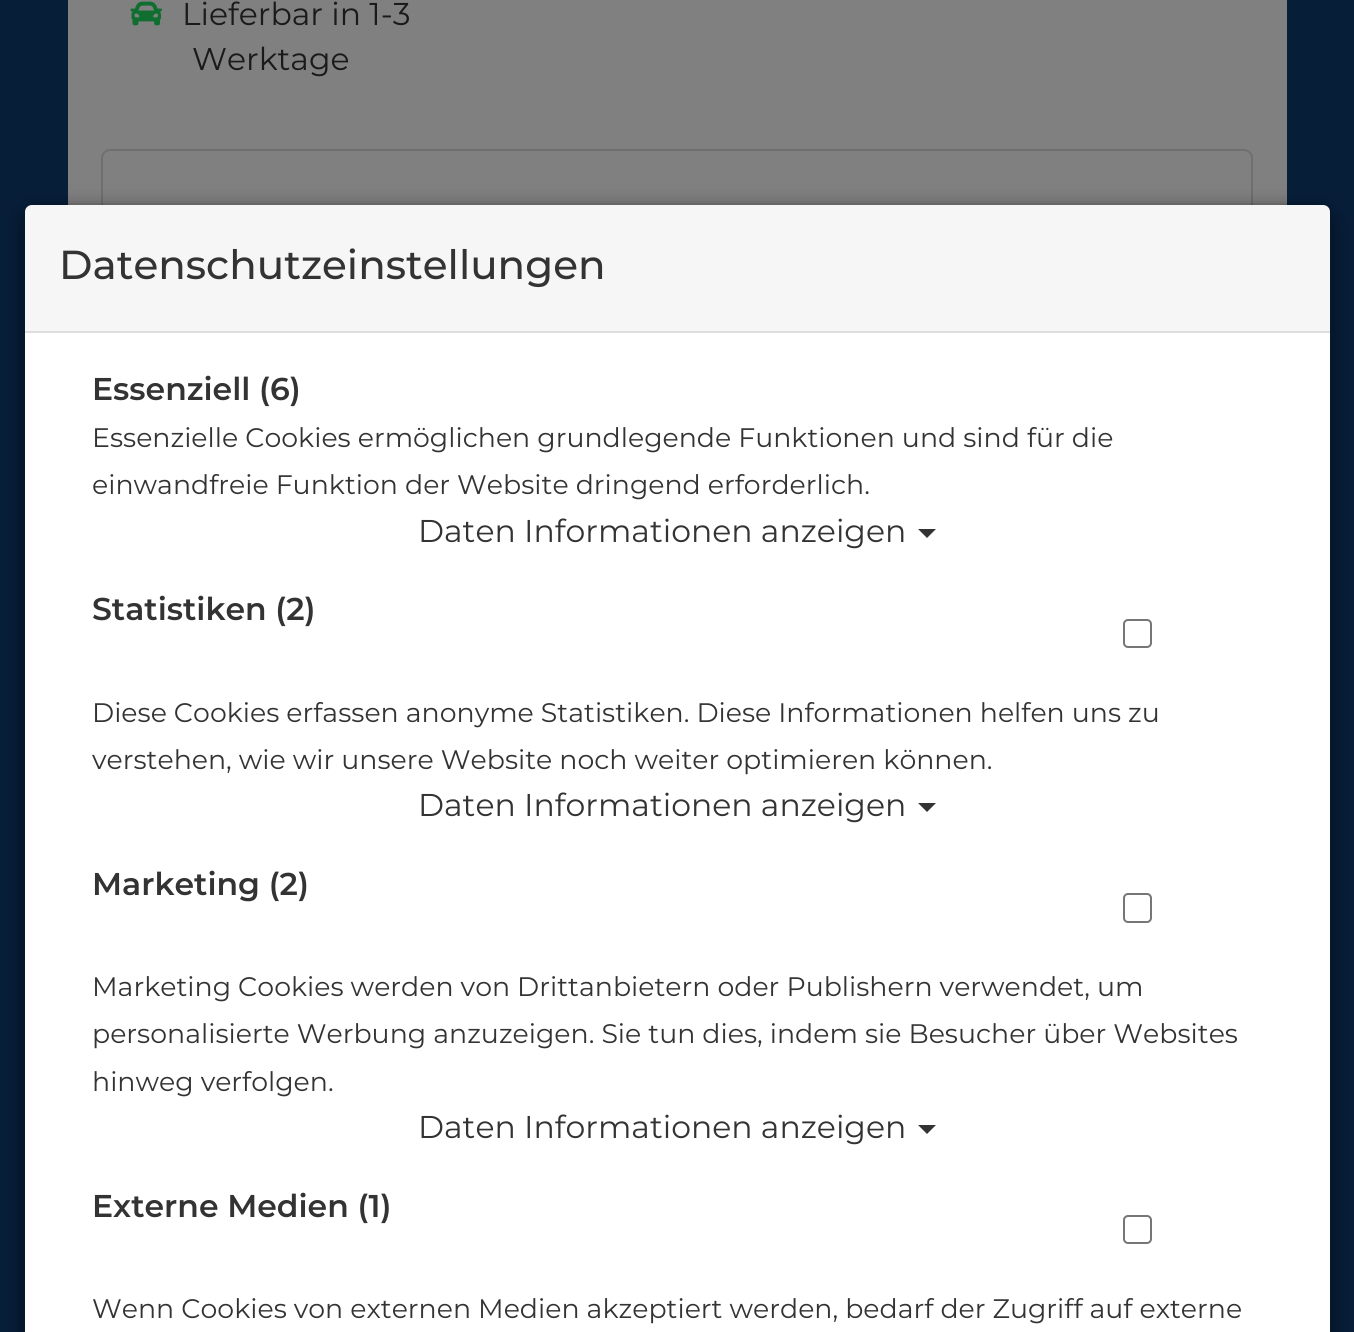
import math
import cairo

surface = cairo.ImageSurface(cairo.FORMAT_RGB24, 1354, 1332)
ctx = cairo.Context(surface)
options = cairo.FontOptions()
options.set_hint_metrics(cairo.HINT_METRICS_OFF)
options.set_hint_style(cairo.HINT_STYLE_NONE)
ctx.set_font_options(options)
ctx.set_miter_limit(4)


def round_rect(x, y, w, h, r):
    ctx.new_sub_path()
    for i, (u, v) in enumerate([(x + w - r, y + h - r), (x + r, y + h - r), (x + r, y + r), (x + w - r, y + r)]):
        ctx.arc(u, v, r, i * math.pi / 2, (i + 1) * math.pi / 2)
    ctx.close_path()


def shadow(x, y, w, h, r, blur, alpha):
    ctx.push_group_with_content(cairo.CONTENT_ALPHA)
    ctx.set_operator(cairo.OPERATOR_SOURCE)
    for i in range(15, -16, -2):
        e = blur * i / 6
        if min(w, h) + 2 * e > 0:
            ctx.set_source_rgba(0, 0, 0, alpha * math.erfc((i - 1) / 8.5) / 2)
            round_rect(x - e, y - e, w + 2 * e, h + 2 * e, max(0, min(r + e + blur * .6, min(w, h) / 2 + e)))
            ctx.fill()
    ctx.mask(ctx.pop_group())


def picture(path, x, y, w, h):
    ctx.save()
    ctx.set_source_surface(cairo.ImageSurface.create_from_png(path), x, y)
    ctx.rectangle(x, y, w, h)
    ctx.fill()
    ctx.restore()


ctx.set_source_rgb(0.031, 0.118, 0.224)
ctx.paint()
ctx.set_source_rgb(0.502, 0.502, 0.502)
ctx.rectangle(68, 0, 1219, 205)
ctx.fill()
picture("img1.png", 130, 1, 32, 25)
ctx.select_font_face("Montserrat")
ctx.set_font_size(31.5)
ctx.set_source_rgb(0.102, 0.102, 0.102)
ctx.move_to(182, 25)
ctx.show_text("Lieferbar in 1-3")
ctx.move_to(192, 70)
ctx.show_text("Werktage")
ctx.set_source_rgb(0.502, 0.502, 0.502)
round_rect(102, 150, 1150, 70, 8)
ctx.fill_preserve()
ctx.set_source_rgb(0.435, 0.435, 0.435)
ctx.stroke()
ctx.save()
ctx.set_fill_rule(cairo.FILL_RULE_EVEN_ODD)
ctx.new_path()
ctx.move_to(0, 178)
ctx.line_to(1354, 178)
ctx.line_to(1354, 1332)
ctx.line_to(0, 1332)
ctx.close_path()
ctx.move_to(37, 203)
ctx.line_to(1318, 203)
ctx.curve_to(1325.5, 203, 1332, 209.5, 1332, 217)
ctx.line_to(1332, 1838)
ctx.curve_to(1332, 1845.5, 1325.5, 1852, 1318, 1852)
ctx.line_to(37, 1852)
ctx.curve_to(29.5, 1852, 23, 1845.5, 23, 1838)
ctx.line_to(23, 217)
ctx.curve_to(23, 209.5, 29.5, 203, 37, 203)
ctx.close_path()
ctx.clip()
ctx.set_source_rgb(0, 0, 0)
shadow(23, 209, 1309, 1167, 14, 10, 0.5)
ctx.restore()
ctx.set_source_rgb(1, 1, 1)
ctx.new_path()
ctx.move_to(36, 205)
ctx.line_to(1319, 205)
ctx.curve_to(1325, 205, 1330, 210, 1330, 216)
ctx.line_to(1330, 1332)
ctx.line_to(25, 1332)
ctx.line_to(25, 216)
ctx.curve_to(25, 210, 30, 205, 36, 205)
ctx.close_path()
ctx.fill()
round_rect(24, 204, 1307, 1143, 13)
ctx.set_source_rgba(0, 0, 0, 0.2)
ctx.stroke()
ctx.set_source_rgb(0.961, 0.961, 0.961)
ctx.new_path()
ctx.move_to(32, 205)
ctx.line_to(1323, 205)
ctx.curve_to(1327, 205, 1330, 208, 1330, 212)
ctx.line_to(1330, 333)
ctx.line_to(25, 333)
ctx.line_to(25, 212)
ctx.curve_to(25, 208, 28, 205, 32, 205)
ctx.close_path()
ctx.fill()
ctx.set_source_rgb(0.867, 0.867, 0.867)
ctx.rectangle(25, 331, 1305, 2)
ctx.fill()
ctx.select_font_face("Montserrat Medium")
ctx.set_font_size(40.5)
ctx.set_source_rgb(0.2, 0.2, 0.2)
ctx.move_to(59, 279)
ctx.show_text("Datenschutzeinstellungen")
ctx.select_font_face("Montserrat SemiBold")
ctx.set_font_size(31.5)
ctx.move_to(92, 400)
ctx.show_text("Essenziell (6)")
ctx.select_font_face("Montserrat")
ctx.set_font_size(26.8)
ctx.move_to(92, 447)
ctx.show_text("Essenzielle Cookies ermöglichen grundlegende Funktionen und sind für die")
ctx.move_to(92, 494)
ctx.show_text("einwandfreie Funktion der Website dringend erforderlich.")
ctx.set_font_size(31.5)
ctx.move_to(418, 542)
ctx.show_text("Daten Informationen anzeigen")
ctx.new_path()
ctx.move_to(918, 529)
ctx.line_to(936, 529)
ctx.line_to(927, 538)
ctx.close_path()
ctx.fill()
ctx.select_font_face("Montserrat SemiBold")
ctx.move_to(92, 620)
ctx.show_text("Statistiken (2)")
round_rect(1124, 620, 27, 27, 4)
ctx.set_source_rgb(0.463, 0.463, 0.463)
ctx.stroke()
ctx.select_font_face("Montserrat")
ctx.set_font_size(26.8)
ctx.set_source_rgb(0.2, 0.2, 0.2)
ctx.move_to(92, 722)
ctx.show_text("Diese Cookies erfassen anonyme Statistiken. Diese Informationen helfen uns zu")
ctx.move_to(92, 769)
ctx.show_text("verstehen, wie wir unsere Website noch weiter optimieren können.")
ctx.set_font_size(31.5)
ctx.move_to(418, 816)
ctx.show_text("Daten Informationen anzeigen")
ctx.new_path()
ctx.move_to(918, 803)
ctx.line_to(936, 803)
ctx.line_to(927, 812)
ctx.close_path()
ctx.fill()
ctx.select_font_face("Montserrat SemiBold")
ctx.move_to(92, 895)
ctx.show_text("Marketing (2)")
round_rect(1124, 894, 27, 28, 4)
ctx.set_source_rgb(0.463, 0.463, 0.463)
ctx.stroke()
ctx.select_font_face("Montserrat")
ctx.set_font_size(26.8)
ctx.set_source_rgb(0.2, 0.2, 0.2)
ctx.move_to(92, 996)
ctx.show_text("Marketing Cookies werden von Drittanbietern oder Publishern verwendet, um")
ctx.move_to(92, 1043)
ctx.show_text("personalisierte Werbung anzuzeigen. Sie tun dies, indem sie Besucher über Websites")
ctx.move_to(92, 1091)
ctx.show_text("hinweg verfolgen.")
ctx.set_font_size(31.5)
ctx.move_to(418, 1138)
ctx.show_text("Daten Informationen anzeigen")
ctx.new_path()
ctx.move_to(918, 1125)
ctx.line_to(936, 1125)
ctx.line_to(927, 1134)
ctx.close_path()
ctx.fill()
ctx.select_font_face("Montserrat SemiBold")
ctx.move_to(92, 1217)
ctx.show_text("Externe Medien (1)")
round_rect(1124, 1216, 27, 27, 4)
ctx.set_source_rgb(0.463, 0.463, 0.463)
ctx.stroke()
ctx.select_font_face("Montserrat")
ctx.set_font_size(26.8)
ctx.set_source_rgb(0.2, 0.2, 0.2)
ctx.move_to(92, 1318)
ctx.show_text("Wenn Cookies von externen Medien akzeptiert werden, bedarf der Zugriff auf externe")
surface.write_to_png("page.png")
